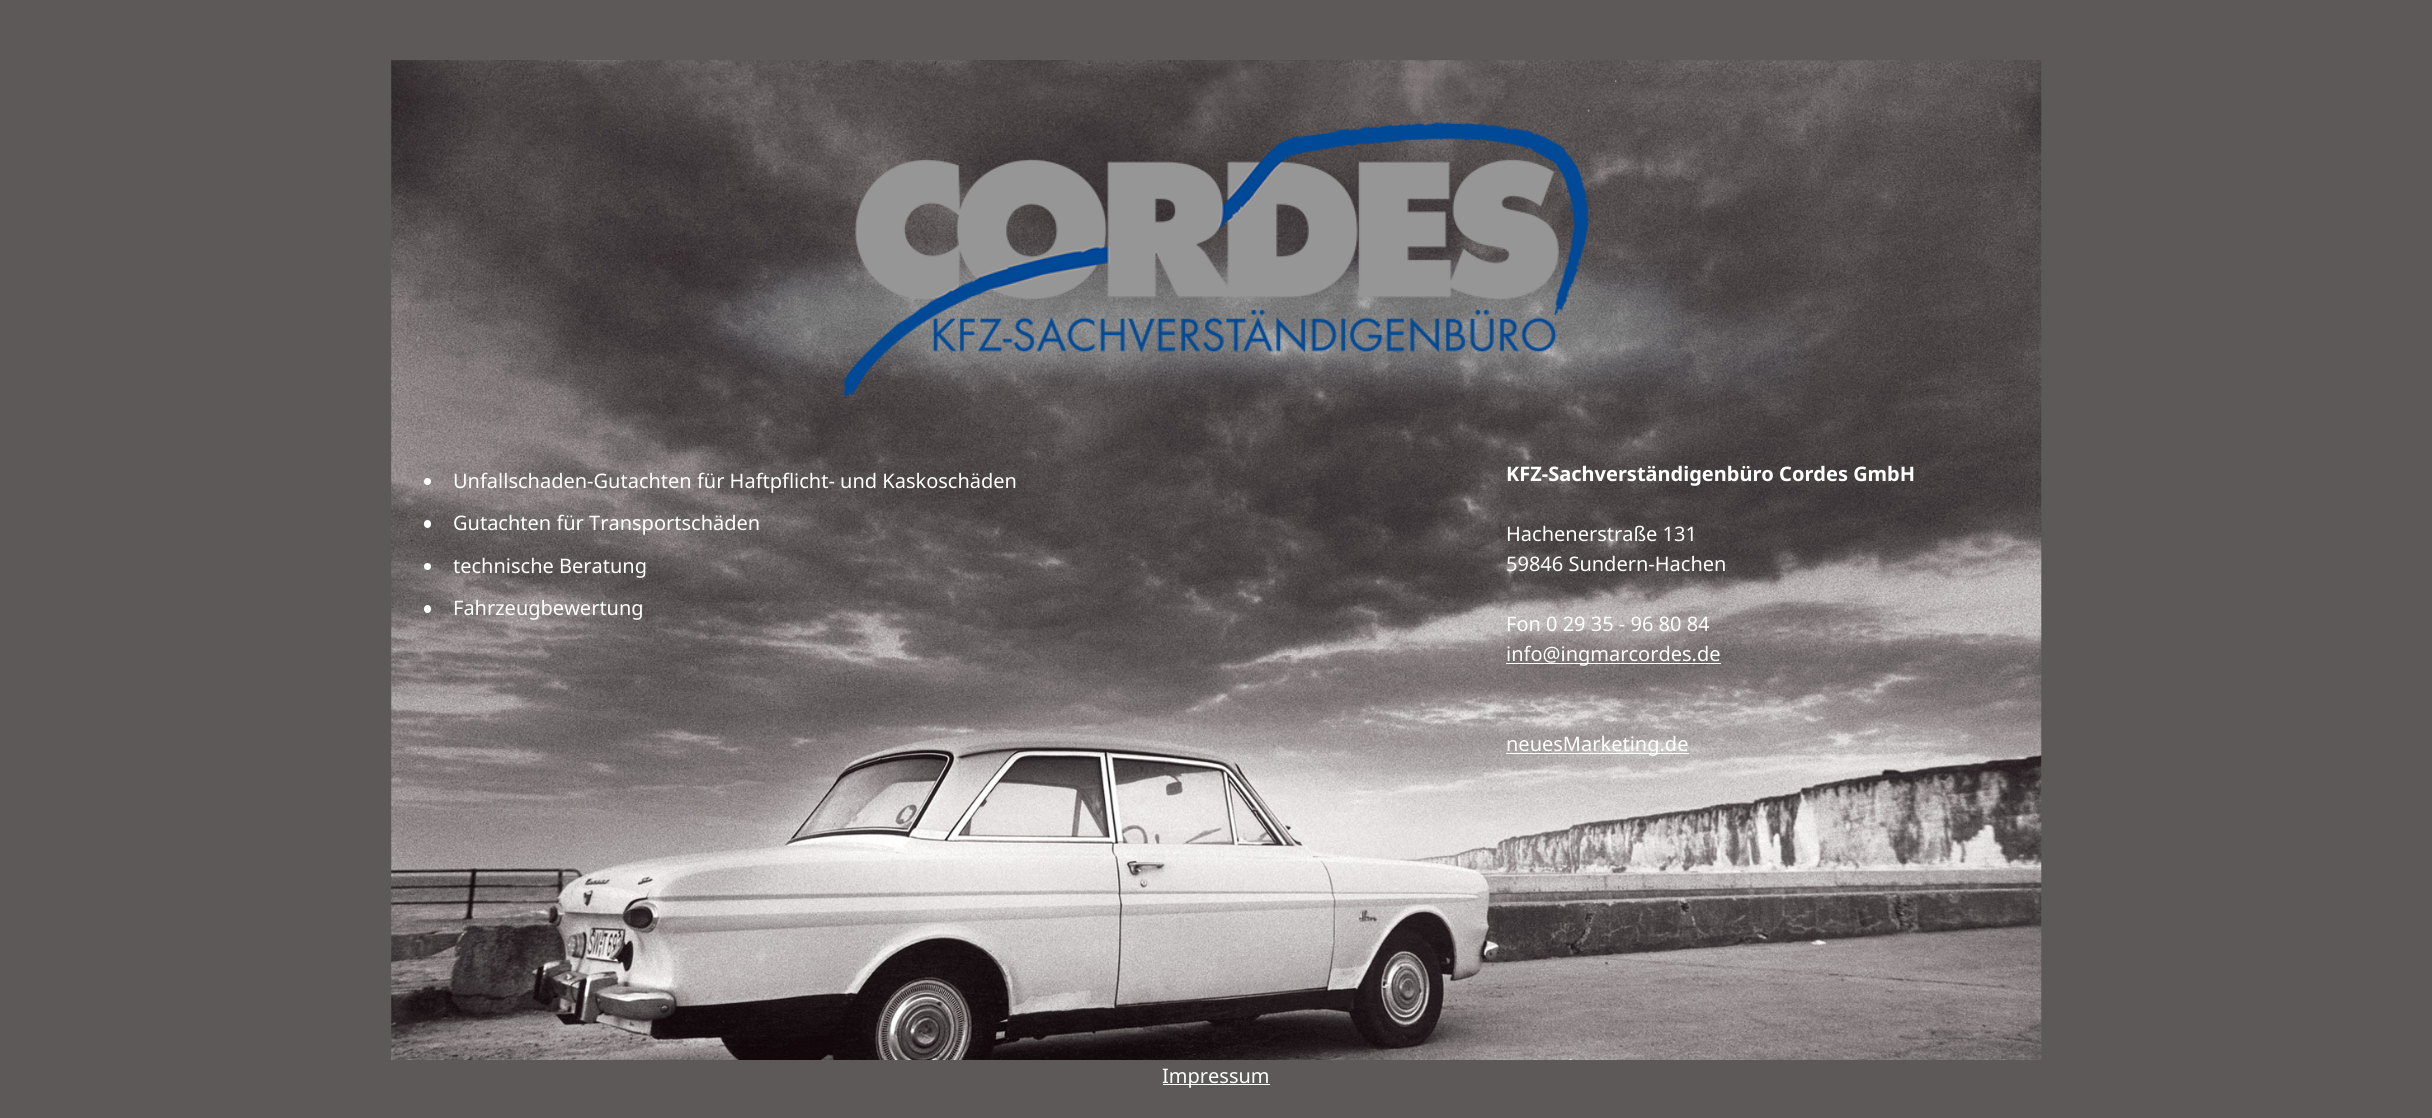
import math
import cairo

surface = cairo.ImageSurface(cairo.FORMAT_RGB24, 2432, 1118)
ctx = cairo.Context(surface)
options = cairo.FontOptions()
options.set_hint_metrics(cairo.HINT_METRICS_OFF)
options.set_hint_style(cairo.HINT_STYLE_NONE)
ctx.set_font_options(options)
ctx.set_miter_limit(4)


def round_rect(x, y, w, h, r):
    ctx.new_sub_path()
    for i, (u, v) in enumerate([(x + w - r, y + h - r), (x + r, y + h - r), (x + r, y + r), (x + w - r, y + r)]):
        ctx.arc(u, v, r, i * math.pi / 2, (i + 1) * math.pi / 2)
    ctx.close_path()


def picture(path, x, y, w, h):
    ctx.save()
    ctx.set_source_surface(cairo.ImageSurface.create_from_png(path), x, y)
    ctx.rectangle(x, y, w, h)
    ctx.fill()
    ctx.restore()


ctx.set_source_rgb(0.369, 0.349, 0.349)
ctx.paint()
picture("img1.png", 391, 60, 1651, 1000)
picture("img2.png", 843, 122, 747, 275)
ctx.set_source_rgb(1, 1, 1)
ctx.arc(427.5, 481.5, 3.5, 0, 2 * math.pi)
ctx.fill()
ctx.select_font_face("Noto Sans")
ctx.set_font_size(20)
ctx.move_to(453, 488)
ctx.show_text("Unfallschaden-Gutachten für Haftpflicht- und Kaskoschäden")
round_rect(424, 520, 7, 8, 3.5)
ctx.fill()
ctx.move_to(453, 530)
ctx.show_text("Gutachten für Transportschäden")
ctx.new_path()
ctx.arc(427.5, 566.5, 3.5, 0, 2 * math.pi)
ctx.fill()
ctx.move_to(453, 573)
ctx.show_text("technische Beratung")
round_rect(424, 605, 7, 8, 3.5)
ctx.fill()
ctx.move_to(453, 615)
ctx.show_text("Fahrzeugbewertung")
ctx.select_font_face("Noto Sans", cairo.FONT_SLANT_NORMAL, cairo.FONT_WEIGHT_BOLD)
ctx.move_to(1506, 481)
ctx.show_text("KFZ-Sachverständigenbüro Cordes GmbH")
ctx.select_font_face("Noto Sans")
ctx.move_to(1506, 541)
ctx.show_text("Hachenerstraße 131")
ctx.move_to(1506, 571)
ctx.show_text("59846 Sundern-Hachen")
ctx.move_to(1506, 631)
ctx.show_text("Fon 0 29 35 - 96 80 84")
ctx.rectangle(1506, 663, 215, 1)
ctx.fill()
ctx.move_to(1506, 661)
ctx.show_text("info@ingmarcordes.de")
ctx.rectangle(1506, 753, 183, 1)
ctx.fill()
ctx.move_to(1506, 751)
ctx.show_text("neuesMarketing.de")
ctx.rectangle(1163, 1084, 107, 1)
ctx.fill()
ctx.move_to(1162, 1083)
ctx.show_text("Impressum")
surface.write_to_png("page.png")
